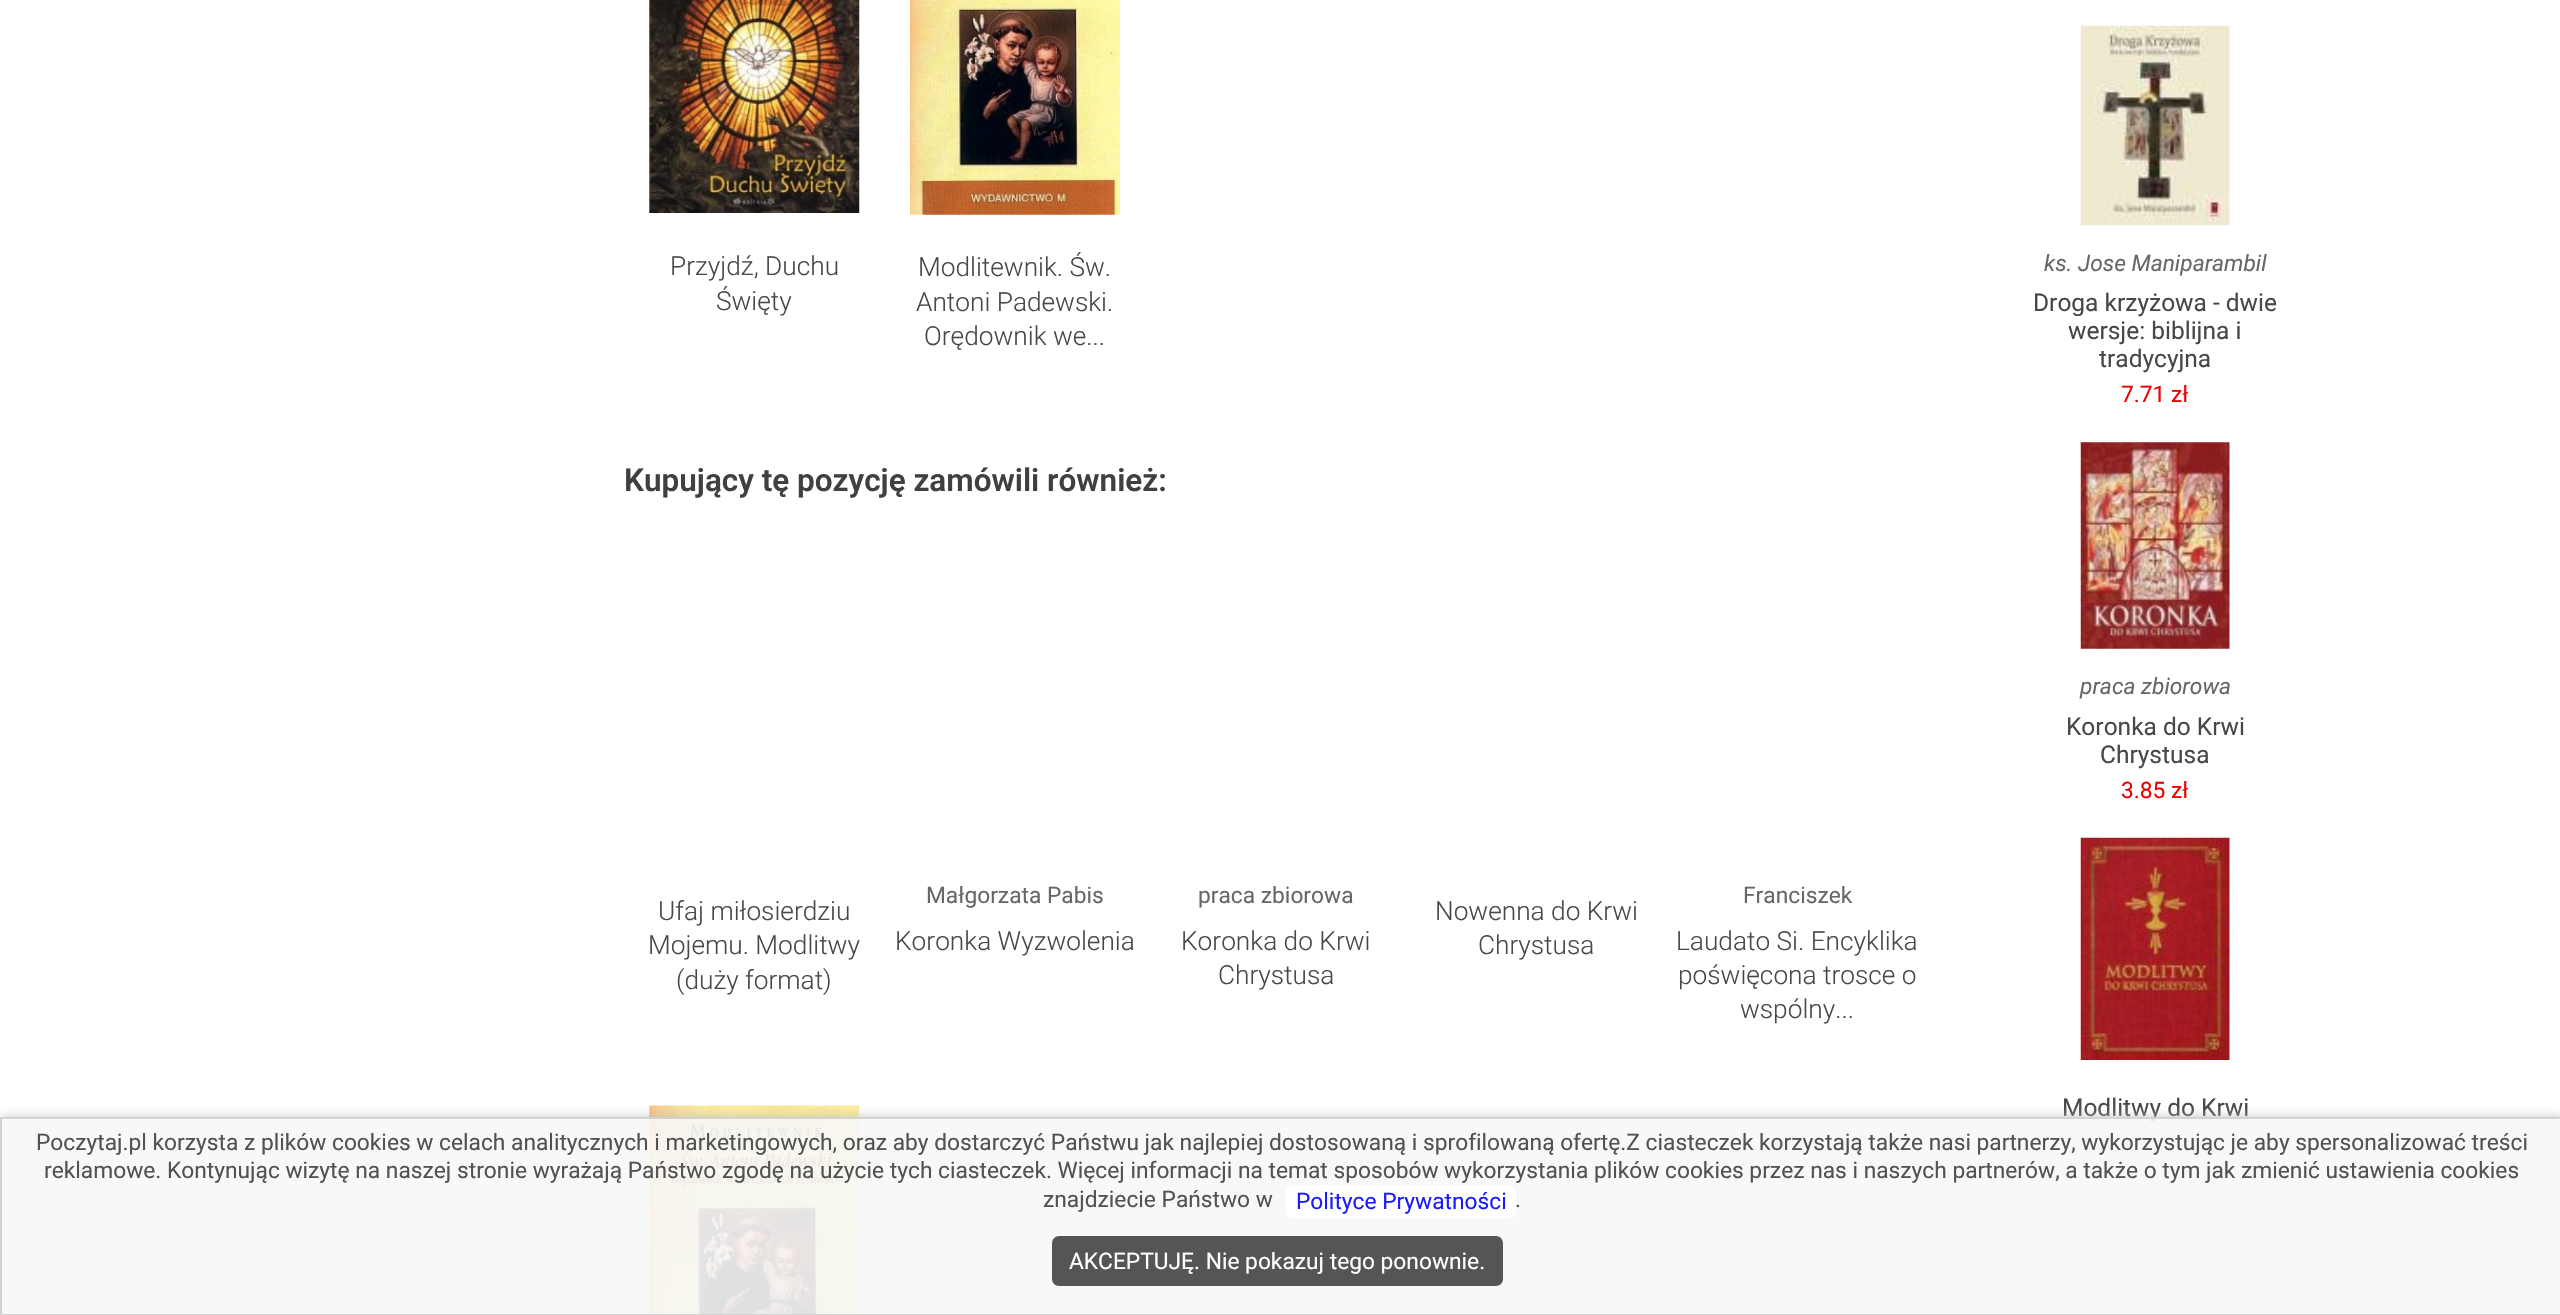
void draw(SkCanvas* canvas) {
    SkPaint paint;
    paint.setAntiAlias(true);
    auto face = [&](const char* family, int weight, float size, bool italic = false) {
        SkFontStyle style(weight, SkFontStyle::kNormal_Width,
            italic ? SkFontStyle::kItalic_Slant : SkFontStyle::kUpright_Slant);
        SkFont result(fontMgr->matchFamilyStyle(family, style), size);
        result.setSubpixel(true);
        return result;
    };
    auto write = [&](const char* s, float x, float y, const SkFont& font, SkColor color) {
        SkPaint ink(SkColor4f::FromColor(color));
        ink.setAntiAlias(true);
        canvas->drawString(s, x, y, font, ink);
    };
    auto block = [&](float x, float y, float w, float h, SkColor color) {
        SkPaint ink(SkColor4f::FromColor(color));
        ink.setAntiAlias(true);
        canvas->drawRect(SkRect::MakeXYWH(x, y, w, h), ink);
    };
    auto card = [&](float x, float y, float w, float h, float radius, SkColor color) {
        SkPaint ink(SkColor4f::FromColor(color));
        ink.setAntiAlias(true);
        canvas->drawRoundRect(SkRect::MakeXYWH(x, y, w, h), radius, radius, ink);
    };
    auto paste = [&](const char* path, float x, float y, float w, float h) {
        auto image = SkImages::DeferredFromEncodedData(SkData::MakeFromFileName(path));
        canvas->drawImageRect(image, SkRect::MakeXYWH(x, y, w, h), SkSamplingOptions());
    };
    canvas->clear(SK_ColorWHITE);
    paste("pic1.png", 649, 0, 211, 213);
    auto kFont1 = face("Roboto", 300, 26.25f);
    write("Przyjdź, Duchu", 670, 275, kFont1, SkColorSetRGB(72, 72, 72));
    write("Święty", 716, 310, kFont1, SkColorSetRGB(72, 72, 72));
    paste("pic2.png", 910, 0, 210, 215);
    write("Modlitewnik. Św.", 918, 276, kFont1, SkColorSetRGB(72, 72, 72));
    write("Antoni Padewski.", 916, 311, kFont1, SkColorSetRGB(72, 72, 72));
    write("Orędownik we...", 924, 345, kFont1, SkColorSetRGB(72, 72, 72));
    auto kFont2 = face("Roboto", 600, 31.5f);
    write("Kupujący tę pozycję zamówili również:", 624, 491, kFont2, SkColorSetRGB(64, 64, 64));
    write("Ufaj miłosierdziu", 658, 920, kFont1, SkColorSetRGB(72, 72, 72));
    write("Mojemu. Modlitwy", 648, 954, kFont1, SkColorSetRGB(72, 72, 72));
    write("(duży format)", 676, 989, kFont1, SkColorSetRGB(72, 72, 72));
    auto kFont3 = face("Roboto", 400, 22.75f);
    write("Małgorzata Pabis", 926, 903, kFont3, SkColorSetRGB(103, 103, 103));
    write("Koronka Wyzwolenia", 895, 950, kFont1, SkColorSetRGB(72, 72, 72));
    write("praca zbiorowa", 1198, 903, kFont3, SkColorSetRGB(103, 103, 103));
    write("Koronka do Krwi", 1181, 950, kFont1, SkColorSetRGB(72, 72, 72));
    write("Chrystusa", 1218, 984, kFont1, SkColorSetRGB(72, 72, 72));
    write("Nowenna do Krwi", 1435, 920, kFont1, SkColorSetRGB(72, 72, 72));
    write("Chrystusa", 1478, 954, kFont1, SkColorSetRGB(72, 72, 72));
    write("Franciszek", 1743, 903, kFont3, SkColorSetRGB(103, 103, 103));
    write("Laudato Si. Encyklika", 1676, 950, kFont1, SkColorSetRGB(72, 72, 72));
    write("poświęcona trosce o", 1678, 984, kFont1, SkColorSetRGB(72, 72, 72));
    write("wspólny...", 1740, 1018, kFont1, SkColorSetRGB(72, 72, 72));
    paste("pic3.png", 649, 1105, 211, 210);
    paste("pic4.png", 2080, 25, 150, 201);
    auto kFont4 = face("Roboto", 400, 22.75f, true);
    write("ks. Jose Maniparambil", 2044, 271, kFont4, SkColorSetRGB(103, 103, 103));
    auto kFont5 = face("Roboto", 400, 24.5f);
    write("Droga krzyżowa - dwie", 2033, 311, kFont5, SkColorSetRGB(72, 72, 72));
    write("wersje: biblijna i", 2068, 339, kFont5, SkColorSetRGB(72, 72, 72));
    write("tradycyjna", 2099, 367, kFont5, SkColorSetRGB(72, 72, 72));
    write("7.71 zł", 2121, 402, kFont3, SkColorSetRGB(236, 0, 0));
    paste("pic5.png", 2080, 442, 150, 207);
    write("praca zbiorowa", 2080, 694, kFont4, SkColorSetRGB(103, 103, 103));
    write("Koronka do Krwi", 2066, 735, kFont5, SkColorSetRGB(72, 72, 72));
    write("Chrystusa", 2100, 763, kFont5, SkColorSetRGB(72, 72, 72));
    write("3.85 zł", 2121, 798, kFont3, SkColorSetRGB(236, 0, 0));
    paste("pic6.png", 2080, 837, 150, 223);
    write("Modlitwy do Krwi", 2062, 1116, kFont5, SkColorSetRGB(72, 72, 72));
    canvas->save();
    canvas->clipRect(SkRect::MakeXYWH(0, 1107, 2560, 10));
    paint.setColor(SkColorSetARGB(230, 192, 192, 192));
    paint.setMaskFilter(SkMaskFilter::MakeBlur(kNormal_SkBlurStyle, 5));
    canvas->drawRect(SkRect::MakeXYWH(0, 1117, 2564, 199), paint);
    paint.setMaskFilter(nullptr);
    canvas->restore();
    block(0, 1117, 2560, 198, SkColorSetARGB(230, 247, 247, 247));
    paint.setStyle(SkPaint::kStroke_Style);
    paint.setStrokeWidth(2);
    paint.setColor(SkColorSetARGB(230, 206, 206, 206));
    canvas->drawRect(SkRect::MakeXYWH(1, 1118, 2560, 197), paint);
    write("Poczytaj.pl korzysta z plików cookies w celach analitycznych i marketingowych, oraz aby dostarczyć Państwu jak najlepiej dostosowaną i sprofilowaną ofertę.Z ciasteczek korzystają także nasi partnerzy, wykorzystując je aby spersonalizować treści", 36, 1150, kFont3, SkColorSetRGB(82, 82, 82));
    write("reklamowe. Kontynując wizytę na naszej stronie wyrażają Państwo zgodę na użycie tych ciasteczek. Więcej informacji na temat sposobów wykorzystania plików cookies przez nas i naszych partnerów, a także o tym jak zmienić ustawienia cookies", 44, 1178, kFont3, SkColorSetRGB(82, 82, 82));
    write("znajdziecie Państwo w", 1043, 1207, kFont3, SkColorSetRGB(82, 82, 82));
    card(1286, 1185, 230, 33, 7, SK_ColorWHITE);
    write("Polityce Prywatności", 1296, 1209, kFont3, SkColorSetRGB(26, 26, 255));
    write(".", 1515, 1207, kFont3, SkColorSetRGB(82, 82, 82));
    card(1052, 1236, 451, 50, 7, SkColorSetRGB(85, 85, 85));
    write("AKCEPTUJĘ. Nie pokazuj tego ponownie.", 1069, 1269, kFont3, SK_ColorWHITE);
}
